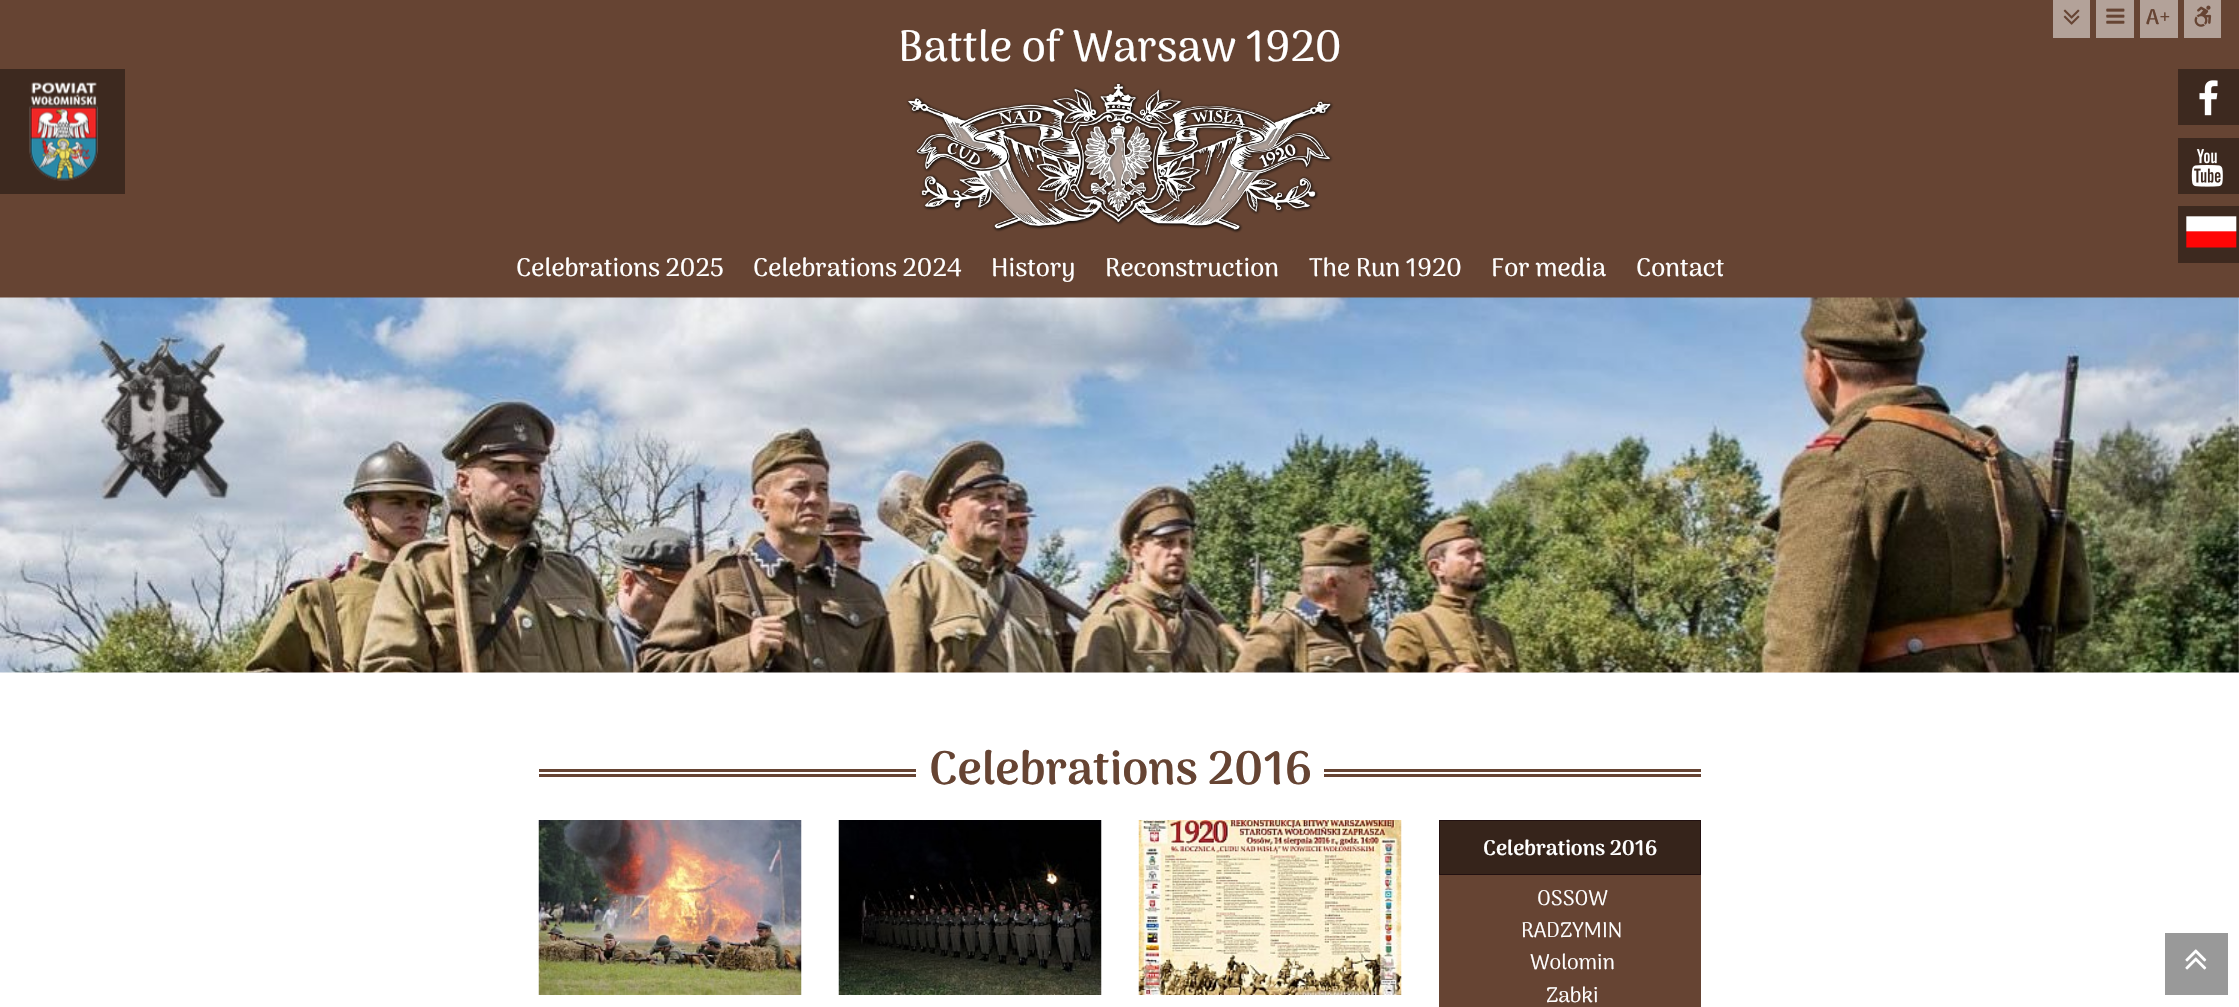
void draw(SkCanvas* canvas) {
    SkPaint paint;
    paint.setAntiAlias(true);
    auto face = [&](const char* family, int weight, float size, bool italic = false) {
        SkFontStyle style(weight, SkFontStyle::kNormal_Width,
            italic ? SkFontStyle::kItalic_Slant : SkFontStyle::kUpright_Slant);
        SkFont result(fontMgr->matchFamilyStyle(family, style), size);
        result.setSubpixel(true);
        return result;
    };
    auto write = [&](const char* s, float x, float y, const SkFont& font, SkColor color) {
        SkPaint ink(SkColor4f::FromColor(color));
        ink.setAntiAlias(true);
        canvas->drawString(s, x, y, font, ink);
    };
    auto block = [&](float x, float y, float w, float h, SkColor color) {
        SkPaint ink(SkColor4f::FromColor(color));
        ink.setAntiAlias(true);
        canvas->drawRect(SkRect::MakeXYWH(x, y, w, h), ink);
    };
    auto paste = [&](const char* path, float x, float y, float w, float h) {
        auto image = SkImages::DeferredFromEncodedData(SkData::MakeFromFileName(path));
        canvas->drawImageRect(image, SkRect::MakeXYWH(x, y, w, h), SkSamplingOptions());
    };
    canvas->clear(SK_ColorWHITE);
    block(0, 0, 2239, 298, SkColorSetRGB(102, 68, 51));
    block(0, 69, 125, 125, SkColorSetRGB(61, 41, 31));
    paste("pic1.png", 29, 82, 69, 99);
    block(2053, 0, 37, 38, SkColorSetRGB(179, 162, 153));
    paste("pic2.png", 2063, 9, 17, 16);
    block(2096, 0, 38, 38, SkColorSetRGB(179, 162, 153));
    paste("pic3.png", 2106, 8, 19, 16);
    block(2140, 0, 38, 38, SkColorSetRGB(179, 162, 153));
    auto kFont1 = face("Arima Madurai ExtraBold", 800, 21.25f);
    write("A+", 2146, 24, kFont1, SkColorSetRGB(102, 68, 51));
    block(2184, 0, 37, 38, SkColorSetRGB(179, 162, 153));
    paste("pic4.png", 2194, 5, 18, 22);
    paste("pic5.png", 906, 82, 428, 151);
    auto kFont2 = face("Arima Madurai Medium", 500, 43.75f);
    write("Battle of Warsaw 1920", 898, 61, kFont2, SK_ColorWHITE);
    auto kFont3 = face("Arima Madurai Medium", 500, 25.5f);
    write("Celebrations 2025", 516, 276, kFont3, SK_ColorWHITE);
    write("Celebrations 2024", 753, 276, kFont3, SK_ColorWHITE);
    write("History", 991, 276, kFont3, SK_ColorWHITE);
    write("Reconstruction", 1105, 276, kFont3, SK_ColorWHITE);
    write("The Run 1920", 1309, 276, kFont3, SK_ColorWHITE);
    write("For media", 1491, 276, kFont3, SK_ColorWHITE);
    write("Contact", 1636, 276, kFont3, SK_ColorWHITE);
    block(2178, 69, 61, 56, SkColorSetRGB(61, 41, 31));
    paste("pic6.png", 2199, 80, 19, 36);
    block(2178, 138, 61, 56, SkColorSetRGB(61, 41, 31));
    paste("pic7.png", 2191, 149, 32, 38);
    block(2178, 206, 61, 57, SkColorSetRGB(61, 41, 31));
    paste("pic8.png", 2186, 216, 51, 32);
    paste("pic9.png", 0, 297, 2239, 376);
    block(539, 769, 1162, 3, SkColorSetRGB(102, 68, 51));
    block(539, 774, 1162, 3, SkColorSetRGB(102, 68, 51));
    block(916, 769, 408, 8, SK_ColorWHITE);
    auto kFont4 = face("Arima Madurai ExtraBold", 800, 46.75f);
    write("Celebrations 2016", 929, 784, kFont4, SkColorSetRGB(102, 68, 51));
    paste("pic10.png", 538, 820, 264, 175);
    paste("pic11.png", 838, 820, 264, 175);
    paste("pic12.png", 1138, 820, 264, 175);
    block(1439, 875, 262, 132, SkColorSetRGB(102, 68, 51));
    paint.setColor(SkColorSetRGB(54, 36, 27));
    canvas->drawRect(SkRect::MakeXYWH(1439.5f, 820.5f, 261, 54), paint);
    paint.setStyle(SkPaint::kStroke_Style);
    paint.setStrokeWidth(1);
    paint.setColor(SkColorSetRGB(34, 17, 17));
    canvas->drawRect(SkRect::MakeXYWH(1439.5f, 820.5f, 261, 54), paint);
    write("Celebrations 2016", 1483, 855, kFont1, SK_ColorWHITE);
    auto kFont5 = face("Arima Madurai", 400, 21.25f);
    write("OSSOW", 1537, 905, kFont5, SK_ColorWHITE);
    write("RADZYMIN", 1521, 937, kFont5, SK_ColorWHITE);
    write("Wolomin", 1530, 969, kFont5, SK_ColorWHITE);
    write("Zabki", 1546, 1002, kFont5, SK_ColorWHITE);
    block(2165, 933, 63, 62, SkColorSetRGB(153, 153, 153));
    paste("pic13.png", 2185, 949, 22, 21);
}
